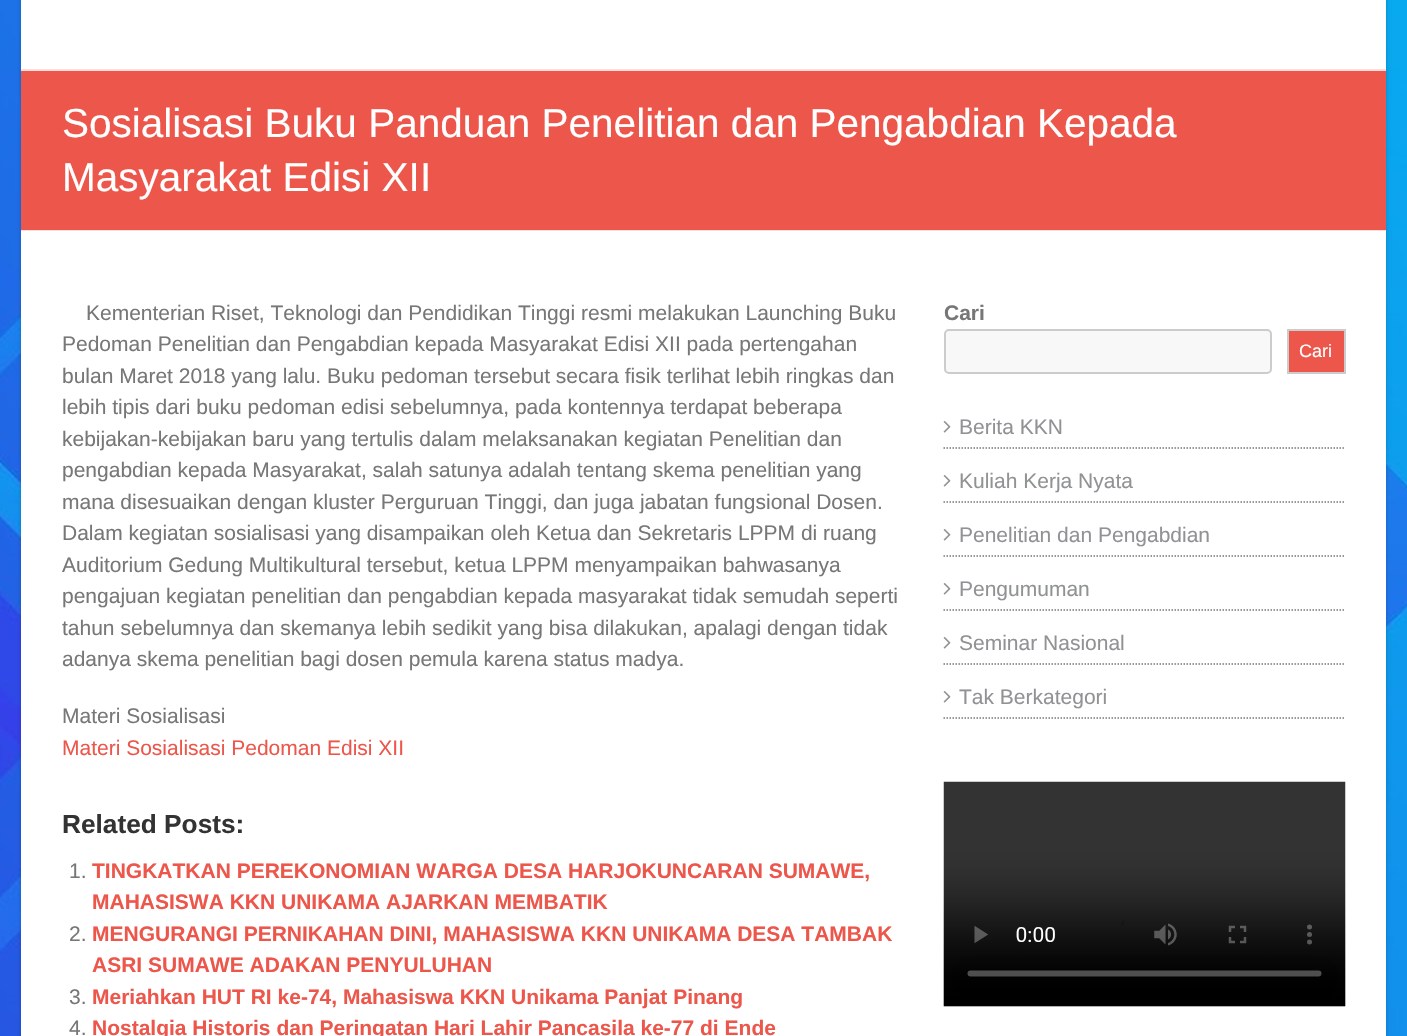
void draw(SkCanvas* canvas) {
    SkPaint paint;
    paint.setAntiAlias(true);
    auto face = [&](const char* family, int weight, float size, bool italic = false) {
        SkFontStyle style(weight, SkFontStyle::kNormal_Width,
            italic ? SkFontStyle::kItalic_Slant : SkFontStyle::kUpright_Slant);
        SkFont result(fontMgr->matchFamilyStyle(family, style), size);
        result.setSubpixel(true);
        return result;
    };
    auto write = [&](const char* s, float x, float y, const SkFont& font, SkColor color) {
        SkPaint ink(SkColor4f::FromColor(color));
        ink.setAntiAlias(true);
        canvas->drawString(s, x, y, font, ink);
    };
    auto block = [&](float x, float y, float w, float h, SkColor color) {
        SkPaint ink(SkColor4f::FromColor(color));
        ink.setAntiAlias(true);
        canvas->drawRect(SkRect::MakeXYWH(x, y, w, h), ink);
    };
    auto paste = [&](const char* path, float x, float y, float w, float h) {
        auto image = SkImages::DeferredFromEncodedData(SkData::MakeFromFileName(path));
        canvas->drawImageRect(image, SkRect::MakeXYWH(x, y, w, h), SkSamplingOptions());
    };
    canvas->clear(SK_ColorWHITE);
    paste("pic1.png", 0, 0, 1407, 1036);
    paint.setColor(SkColorSetARGB(51, 0, 0, 0));
    paint.setMaskFilter(SkMaskFilter::MakeBlur(kNormal_SkBlurStyle, 2));
    canvas->drawRect(SkRect::MakeXYWH(21, -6, 1365, 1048), paint);
    paint.setMaskFilter(nullptr);
    block(21, 0, 1365, 1036, SK_ColorWHITE);
    block(21, 71, 1365, 160, SkColorSetRGB(237, 86, 75));
    block(21, 69, 1365, 2, SkColorSetRGB(251, 221, 219));
    block(21, 230, 1365, 1, SkColorSetARGB(204, 255, 255, 255));
    auto kFont1 = face("Liberation Sans", 400, 40.5f);
    write("Sosialisasi Buku Panduan Penelitian dan Pengabdian Kepada", 62, 137, kFont1, SK_ColorWHITE);
    write("Masyarakat Edisi XII", 62, 191, kFont1, SK_ColorWHITE);
    auto kFont2 = face("Liberation Sans", 400, 21);
    write("Kementerian Riset, Teknologi dan Pendidikan Tinggi resmi melakukan Launching Buku", 86, 320, kFont2, SkColorSetRGB(119, 119, 119));
    write("Pedoman Penelitian dan Pengabdian kepada Masyarakat Edisi XII pada pertengahan", 62, 351, kFont2, SkColorSetRGB(119, 119, 119));
    write("bulan Maret 2018 yang lalu. Buku pedoman tersebut secara fisik terlihat lebih ringkas dan", 62, 383, kFont2, SkColorSetRGB(119, 119, 119));
    write("lebih tipis dari buku pedoman edisi sebelumnya, pada kontennya terdapat beberapa", 62, 414, kFont2, SkColorSetRGB(119, 119, 119));
    write("kebijakan-kebijakan baru yang tertulis dalam melaksanakan kegiatan Penelitian dan", 62, 446, kFont2, SkColorSetRGB(119, 119, 119));
    write("pengabdian kepada Masyarakat, salah satunya adalah tentang skema penelitian yang", 62, 477, kFont2, SkColorSetRGB(119, 119, 119));
    write("mana disesuaikan dengan kluster Perguruan Tinggi, dan juga jabatan fungsional Dosen.", 62, 509, kFont2, SkColorSetRGB(119, 119, 119));
    write("Dalam kegiatan sosialisasi yang disampaikan oleh Ketua dan Sekretaris LPPM di ruang", 62, 540, kFont2, SkColorSetRGB(119, 119, 119));
    write("Auditorium Gedung Multikultural tersebut, ketua LPPM menyampaikan bahwasanya", 62, 572, kFont2, SkColorSetRGB(119, 119, 119));
    write("pengajuan kegiatan penelitian dan pengabdian kepada masyarakat tidak semudah seperti", 62, 603, kFont2, SkColorSetRGB(119, 119, 119));
    write("tahun sebelumnya dan skemanya lebih sedikit yang bisa dilakukan, apalagi dengan tidak", 62, 635, kFont2, SkColorSetRGB(119, 119, 119));
    write("adanya skema penelitian bagi dosen pemula karena status madya.", 62, 666, kFont2, SkColorSetRGB(119, 119, 119));
    write("Materi Sosialisasi", 62, 723, kFont2, SkColorSetRGB(119, 119, 119));
    write("Materi Sosialisasi Pedoman Edisi XII", 62, 755, kFont2, SkColorSetRGB(237, 86, 75));
    auto kFont3 = face("Liberation Sans", 700, 26.25f);
    write("Related Posts:", 62, 833, kFont3, SkColorSetRGB(51, 51, 51));
    write("1.", 69, 878, kFont2, SkColorSetRGB(119, 119, 119));
    auto kFont4 = face("Liberation Sans", 700, 21);
    write("TINGKATKAN PEREKONOMIAN WARGA DESA HARJOKUNCARAN SUMAWE,", 92, 878, kFont4, SkColorSetRGB(237, 86, 75));
    write("MAHASISWA KKN UNIKAMA AJARKAN MEMBATIK", 92, 909, kFont4, SkColorSetRGB(237, 86, 75));
    write("2.", 69, 941, kFont2, SkColorSetRGB(119, 119, 119));
    write("MENGURANGI PERNIKAHAN DINI, MAHASISWA KKN UNIKAMA DESA TAMBAK", 92, 941, kFont4, SkColorSetRGB(237, 86, 75));
    write("ASRI SUMAWE ADAKAN PENYULUHAN", 92, 972, kFont4, SkColorSetRGB(237, 86, 75));
    write("3.", 69, 1004, kFont2, SkColorSetRGB(119, 119, 119));
    write("Meriahkan HUT RI ke-74, Mahasiswa KKN Unikama Panjat Pinang", 92, 1004, kFont4, SkColorSetRGB(237, 86, 75));
    write("4.", 69, 1035, kFont2, SkColorSetRGB(119, 119, 119));
    write("Nostalgia Historis dan Peringatan Hari Lahir Pancasila ke-77 di Ende", 92, 1035, kFont4, SkColorSetRGB(237, 86, 75));
    write("Cari", 944, 320, kFont4, SkColorSetRGB(119, 119, 119));
    paint.setColor(SkColorSetRGB(248, 248, 248));
    canvas->drawRoundRect(SkRect::MakeXYWH(945, 330, 326, 43), 4, 4, paint);
    paint.setStyle(SkPaint::kStroke_Style);
    paint.setStrokeWidth(2);
    paint.setColor(SkColorSetRGB(204, 204, 204));
    canvas->drawRoundRect(SkRect::MakeXYWH(945, 330, 326, 43), 4, 4, paint);
    paint.setStyle(SkPaint::kFill_Style);
    paint.setColor(SkColorSetRGB(237, 86, 75));
    canvas->drawRect(SkRect::MakeXYWH(1288, 330, 57, 43), paint);
    paint.setStyle(SkPaint::kStroke_Style);
    paint.setColor(SkColorSetRGB(204, 204, 204));
    canvas->drawRect(SkRect::MakeXYWH(1288, 330, 57, 43), paint);
    auto kFont5 = face("Liberation Sans", 400, 18);
    write("Cari", 1299, 357, kFont5, SK_ColorWHITE);
    paint.setStrokeWidth(1.5f);
    paint.setColor(SkColorSetRGB(119, 119, 119));
    paint.setPathEffect(SkDashPathEffect::Make({{1.5f, 1.5f}}, 0));
    canvas->drawPath(SkPathBuilder().moveTo(943.5f, 448).lineTo(1345.5f, 448).detach(), paint);
    paint.setPathEffect(nullptr);
    paste("pic2.png", 943, 421, 8, 12);
    write("Berita KKN", 959, 434, kFont2, SkColorSetRGB(144, 146, 148));
    paint.setPathEffect(SkDashPathEffect::Make({{1.5f, 1.5f}}, 0));
    canvas->drawPath(SkPathBuilder().moveTo(943.5f, 502).lineTo(1345.5f, 502).detach(), paint);
    paint.setPathEffect(nullptr);
    paste("pic2.png", 943, 475, 8, 12);
    write("Kuliah Kerja Nyata", 959, 488, kFont2, SkColorSetRGB(144, 146, 148));
    paint.setPathEffect(SkDashPathEffect::Make({{1.5f, 1.5f}}, 0));
    canvas->drawPath(SkPathBuilder().moveTo(943.5f, 556).lineTo(1345.5f, 556).detach(), paint);
    paint.setPathEffect(nullptr);
    paste("pic2.png", 943, 529, 8, 12);
    write("Penelitian dan Pengabdian", 959, 542, kFont2, SkColorSetRGB(144, 146, 148));
    paint.setPathEffect(SkDashPathEffect::Make({{1.5f, 1.5f}}, 0));
    canvas->drawPath(SkPathBuilder().moveTo(943.5f, 610).lineTo(1345.5f, 610).detach(), paint);
    paint.setPathEffect(nullptr);
    paste("pic2.png", 943, 583, 8, 12);
    write("Pengumuman", 959, 596, kFont2, SkColorSetRGB(144, 146, 148));
    paint.setPathEffect(SkDashPathEffect::Make({{1.5f, 1.5f}}, 0));
    canvas->drawPath(SkPathBuilder().moveTo(943.5f, 664).lineTo(1345.5f, 664).detach(), paint);
    paint.setPathEffect(nullptr);
    paste("pic2.png", 943, 637, 8, 12);
    write("Seminar Nasional", 959, 650, kFont2, SkColorSetRGB(144, 146, 148));
    paint.setPathEffect(SkDashPathEffect::Make({{1.5f, 1.5f}}, 0));
    canvas->drawPath(SkPathBuilder().moveTo(943.5f, 718).lineTo(1345.5f, 718).detach(), paint);
    paint.setPathEffect(nullptr);
    paste("pic2.png", 943, 691, 8, 12);
    write("Tak Berkategori", 959, 704, kFont2, SkColorSetRGB(144, 146, 148));
    paste("pic3.png", 943, 781, 403, 226);
}
